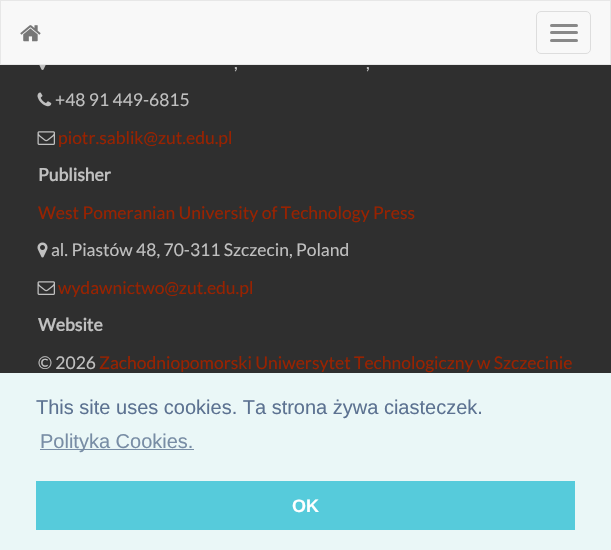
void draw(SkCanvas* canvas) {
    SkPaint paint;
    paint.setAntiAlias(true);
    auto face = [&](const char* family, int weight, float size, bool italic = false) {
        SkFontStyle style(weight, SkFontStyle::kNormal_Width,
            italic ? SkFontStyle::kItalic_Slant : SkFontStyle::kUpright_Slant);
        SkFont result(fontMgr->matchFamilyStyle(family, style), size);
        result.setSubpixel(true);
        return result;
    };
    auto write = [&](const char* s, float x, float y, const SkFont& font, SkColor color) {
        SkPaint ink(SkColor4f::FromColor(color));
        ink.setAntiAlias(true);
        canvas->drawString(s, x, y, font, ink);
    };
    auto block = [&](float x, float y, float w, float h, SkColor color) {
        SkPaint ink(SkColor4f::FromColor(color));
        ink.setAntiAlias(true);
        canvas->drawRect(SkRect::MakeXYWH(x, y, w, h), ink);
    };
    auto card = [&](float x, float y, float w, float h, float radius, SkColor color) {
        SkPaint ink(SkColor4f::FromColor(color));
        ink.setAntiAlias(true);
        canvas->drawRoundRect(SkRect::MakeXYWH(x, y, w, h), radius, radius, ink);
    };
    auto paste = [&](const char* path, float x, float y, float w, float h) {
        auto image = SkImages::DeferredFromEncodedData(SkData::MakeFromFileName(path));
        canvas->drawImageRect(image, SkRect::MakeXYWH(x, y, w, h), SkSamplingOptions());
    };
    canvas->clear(SkColorSetRGB(47, 47, 47));
    paint.setColor(SkColorSetRGB(248, 248, 248));
    canvas->drawRect(SkRect::MakeXYWH(0.5f, 0.5f, 610, 64), paint);
    paint.setStyle(SkPaint::kStroke_Style);
    paint.setStrokeWidth(1);
    paint.setColor(SkColorSetRGB(231, 231, 231));
    canvas->drawRect(SkRect::MakeXYWH(0.5f, 0.5f, 610, 64), paint);
    paste("pic1.png", 20, 25, 21, 17);
    paint.setColor(SkColorSetRGB(221, 221, 221));
    canvas->drawRoundRect(SkRect::MakeXYWH(536.5f, 11.5f, 54, 42), 4.5f, 4.5f, paint);
    card(550, 24, 28, 3, 1.5f, SkColorSetRGB(136, 136, 136));
    card(550, 31, 28, 3, 1.5f, SkColorSetRGB(136, 136, 136));
    card(550, 39, 28, 3, 1.5f, SkColorSetRGB(136, 136, 136));
    paste("pic2.png", 39, 65, 7, 5);
    auto kFont1 = face("Lato", 400, 17.5f);
    write(",", 234, 69, kFont1, SkColorSetRGB(192, 192, 192));
    write(",", 366, 69, kFont1, SkColorSetRGB(192, 192, 192));
    paste("pic3.png", 37, 92, 15, 15);
    write("+48 91 449-6815", 55, 106, kFont1, SkColorSetRGB(192, 192, 192));
    paste("pic4.png", 37, 131, 18, 14);
    write("piotr.sablik@zut.edu.pl", 58, 144, kFont1, SkColorSetRGB(153, 34, 0));
    auto kFont2 = face("Lato", 700, 17.5f);
    write("Publisher", 38, 181, kFont2, SkColorSetRGB(192, 192, 192));
    write("West Pomeranian University of Technology Press", 38, 219, kFont1, SkColorSetRGB(153, 34, 0));
    paste("pic5.png", 37, 242, 11, 16);
    write("al. Piastów 48, 70-311 Szczecin, Poland", 51, 256, kFont1, SkColorSetRGB(192, 192, 192));
    paste("pic4.png", 37, 281, 18, 14);
    write("wydawnictwo@zut.edu.pl", 58, 294, kFont1, SkColorSetRGB(153, 34, 0));
    write("Website", 38, 331, kFont2, SkColorSetRGB(192, 192, 192));
    write("© 2026", 38, 369, kFont1, SkColorSetRGB(192, 192, 192));
    write("Zachodniopomorski Uniwersytet Technologiczny w Szczecinie", 99, 369, kFont1, SkColorSetRGB(153, 34, 0));
    block(0, 373, 611, 177, SkColorSetRGB(234, 247, 247));
    auto kFont3 = face("Liberation Sans", 400, 20);
    write("This site uses cookies. Ta strona żywa ciasteczek.", 36, 414, kFont3, SkColorSetRGB(92, 114, 145));
    block(40, 449, 154, 1, SkColorSetRGB(120, 141, 165));
    write("Polityka Cookies.", 40, 448, kFont3, SkColorSetRGB(120, 141, 165));
    block(36, 481, 539, 49, SkColorSetRGB(86, 203, 219));
    auto kFont4 = face("Liberation Sans", 700, 18);
    write("OK", 292, 512, kFont4, SK_ColorWHITE);
}
